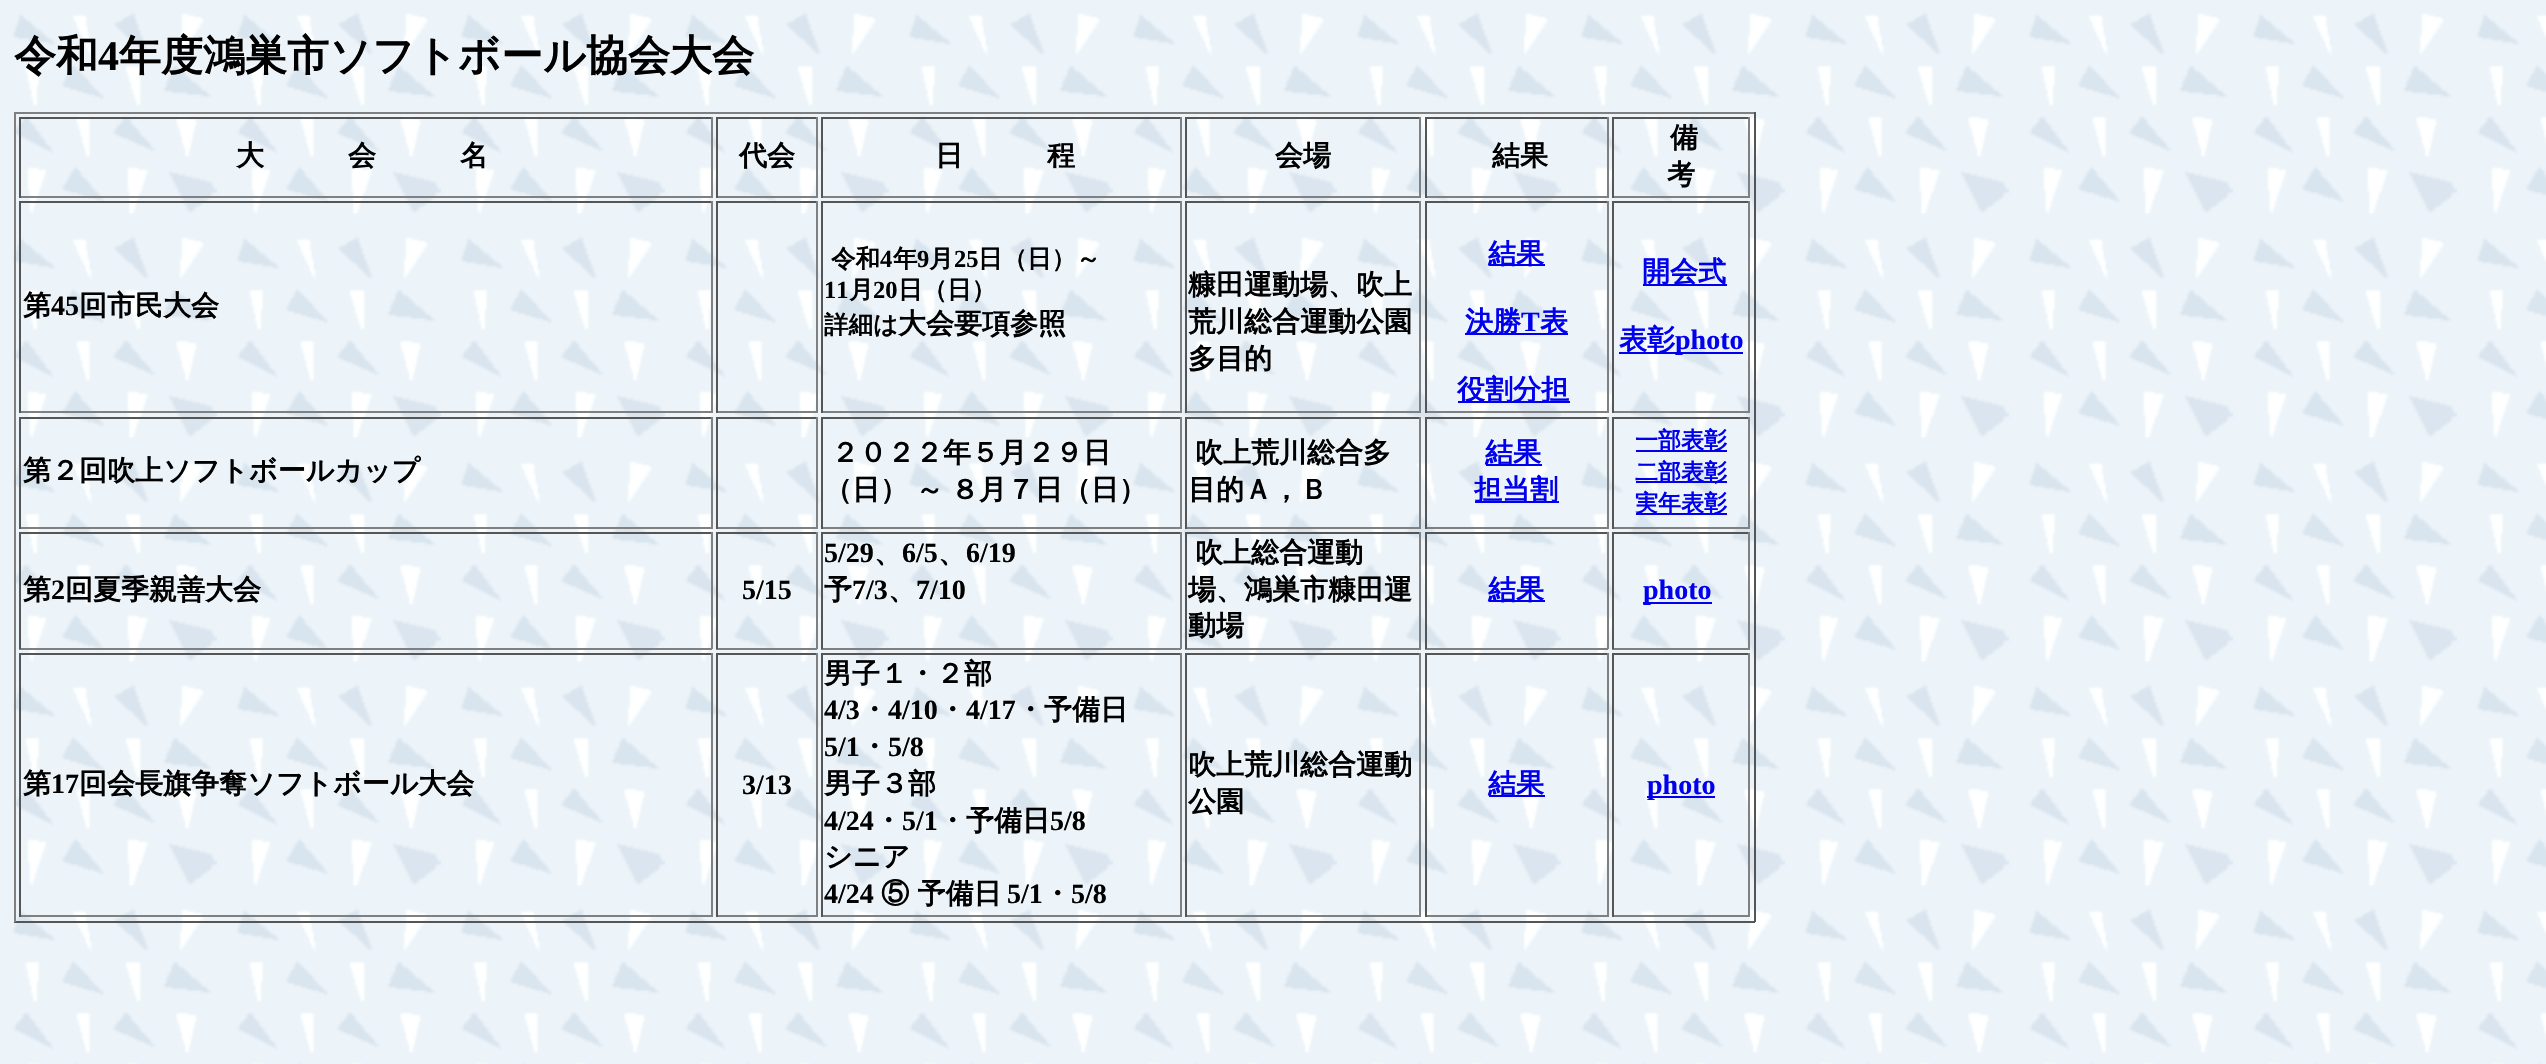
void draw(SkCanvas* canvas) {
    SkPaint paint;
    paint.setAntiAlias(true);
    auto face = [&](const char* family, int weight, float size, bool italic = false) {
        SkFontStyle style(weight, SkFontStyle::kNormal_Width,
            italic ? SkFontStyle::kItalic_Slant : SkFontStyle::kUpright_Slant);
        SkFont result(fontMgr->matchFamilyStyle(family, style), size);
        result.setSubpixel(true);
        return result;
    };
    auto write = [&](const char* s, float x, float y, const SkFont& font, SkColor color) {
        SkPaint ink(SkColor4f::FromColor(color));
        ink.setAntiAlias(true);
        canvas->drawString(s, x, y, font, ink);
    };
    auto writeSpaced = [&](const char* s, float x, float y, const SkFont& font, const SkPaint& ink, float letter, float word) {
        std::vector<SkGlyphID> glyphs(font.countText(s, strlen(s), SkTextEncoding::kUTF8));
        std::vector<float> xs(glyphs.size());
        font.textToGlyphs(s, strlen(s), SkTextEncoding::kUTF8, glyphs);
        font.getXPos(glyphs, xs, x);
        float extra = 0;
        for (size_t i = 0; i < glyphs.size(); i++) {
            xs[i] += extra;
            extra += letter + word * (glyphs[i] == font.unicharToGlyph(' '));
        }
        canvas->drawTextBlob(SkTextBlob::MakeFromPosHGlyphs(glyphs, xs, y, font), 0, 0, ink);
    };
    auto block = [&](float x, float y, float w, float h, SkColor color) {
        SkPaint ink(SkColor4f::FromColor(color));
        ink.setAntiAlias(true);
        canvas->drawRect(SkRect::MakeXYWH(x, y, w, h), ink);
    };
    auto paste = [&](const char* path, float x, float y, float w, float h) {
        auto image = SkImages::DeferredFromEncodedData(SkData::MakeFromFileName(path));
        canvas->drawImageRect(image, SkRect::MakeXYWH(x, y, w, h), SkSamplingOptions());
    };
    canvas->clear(SK_ColorWHITE);
    paste("pic1.png", 0, 0, 2546, 1064);
    auto kFont1 = face("WenQuanYi Zen Hei", 700, 42);
    write("令和", 14, 70, kFont1, SK_ColorBLACK);
    auto kFont2 = face("Liberation Serif", 700, 42);
    write("4", 98, 70, kFont2, SK_ColorBLACK);
    write("年度鴻巣市ソフトボール協会大会", 119, 70, kFont1, SK_ColorBLACK);
    block(14, 112, 1741, 2, SkColorSetRGB(128, 128, 128));
    block(1754, 112, 2, 810, SkColorSetRGB(85, 85, 85));
    block(14, 921, 1741, 2, SkColorSetRGB(85, 85, 85));
    block(14, 112, 2, 810, SkColorSetRGB(128, 128, 128));
    block(19, 117, 693, 2, SkColorSetRGB(85, 85, 85));
    block(711, 117, 2, 81, SkColorSetRGB(128, 128, 128));
    block(19, 196, 693, 2, SkColorSetRGB(128, 128, 128));
    block(19, 117, 2, 81, SkColorSetRGB(85, 85, 85));
    auto kFont3 = face("WenQuanYi Zen Hei", 700, 28);
    write("大　　　会　　　名", 236, 165, kFont3, SK_ColorBLACK);
    block(716, 117, 101, 2, SkColorSetRGB(85, 85, 85));
    block(816, 117, 2, 81, SkColorSetRGB(128, 128, 128));
    block(716, 196, 101, 2, SkColorSetRGB(128, 128, 128));
    block(716, 117, 2, 81, SkColorSetRGB(85, 85, 85));
    write("代会", 739, 165, kFont3, SK_ColorBLACK);
    block(821, 117, 360, 2, SkColorSetRGB(85, 85, 85));
    block(1180, 117, 2, 81, SkColorSetRGB(128, 128, 128));
    block(821, 196, 360, 2, SkColorSetRGB(128, 128, 128));
    block(821, 117, 2, 81, SkColorSetRGB(85, 85, 85));
    write("日　　　程", 935, 165, kFont3, SK_ColorBLACK);
    block(1185, 117, 236, 2, SkColorSetRGB(85, 85, 85));
    block(1419, 117, 2, 81, SkColorSetRGB(128, 128, 128));
    block(1185, 196, 236, 2, SkColorSetRGB(128, 128, 128));
    block(1185, 117, 2, 81, SkColorSetRGB(85, 85, 85));
    write("会場", 1275, 165, kFont3, SK_ColorBLACK);
    block(1425, 117, 183, 2, SkColorSetRGB(85, 85, 85));
    block(1607, 117, 2, 81, SkColorSetRGB(128, 128, 128));
    block(1425, 196, 183, 2, SkColorSetRGB(128, 128, 128));
    block(1425, 117, 2, 81, SkColorSetRGB(85, 85, 85));
    write("結果", 1492, 165, kFont3, SK_ColorBLACK);
    block(1612, 117, 138, 2, SkColorSetRGB(85, 85, 85));
    block(1748, 117, 2, 81, SkColorSetRGB(128, 128, 128));
    block(1612, 196, 138, 2, SkColorSetRGB(128, 128, 128));
    block(1612, 117, 2, 81, SkColorSetRGB(85, 85, 85));
    write("備", 1670, 147, kFont3, SK_ColorBLACK);
    write("考", 1667, 184, kFont3, SK_ColorBLACK);
    block(19, 201, 693, 2, SkColorSetRGB(85, 85, 85));
    block(711, 201, 2, 212, SkColorSetRGB(128, 128, 128));
    block(19, 411, 693, 2, SkColorSetRGB(128, 128, 128));
    block(19, 201, 2, 212, SkColorSetRGB(85, 85, 85));
    write("第", 23, 315, kFont3, SK_ColorBLACK);
    auto kFont4 = face("Liberation Serif", 700, 28);
    write("45", 51, 315, kFont4, SK_ColorBLACK);
    write("回市民大会", 79, 315, kFont3, SK_ColorBLACK);
    block(716, 201, 101, 2, SkColorSetRGB(85, 85, 85));
    block(816, 201, 2, 212, SkColorSetRGB(128, 128, 128));
    block(716, 411, 101, 2, SkColorSetRGB(128, 128, 128));
    block(716, 201, 2, 212, SkColorSetRGB(85, 85, 85));
    block(821, 201, 360, 2, SkColorSetRGB(85, 85, 85));
    block(1180, 201, 2, 212, SkColorSetRGB(128, 128, 128));
    block(821, 411, 360, 2, SkColorSetRGB(128, 128, 128));
    block(821, 201, 2, 212, SkColorSetRGB(85, 85, 85));
    auto kFont5 = face("WenQuanYi Zen Hei", 700, 24.5f);
    write("令和", 831, 267, kFont5, SK_ColorBLACK);
    auto kFont6 = face("Liberation Serif", 700, 24.5f);
    write("4", 880, 267, kFont6, SK_ColorBLACK);
    write("年", 893, 267, kFont5, SK_ColorBLACK);
    write("9", 917, 267, kFont6, SK_ColorBLACK);
    write("月", 929, 267, kFont5, SK_ColorBLACK);
    write("25", 954, 267, kFont6, SK_ColorBLACK);
    write("日（日）～", 978, 267, kFont5, SK_ColorBLACK);
    write("11", 824, 298, kFont6, SK_ColorBLACK);
    write("月", 849, 298, kFont5, SK_ColorBLACK);
    write("20", 873, 298, kFont6, SK_ColorBLACK);
    write("日（日）", 898, 298, kFont5, SK_ColorBLACK);
    write("詳細は", 824, 333, kFont5, SK_ColorBLACK);
    write("大会要項参照", 898, 333, kFont3, SK_ColorBLACK);
    block(1185, 201, 236, 2, SkColorSetRGB(85, 85, 85));
    block(1419, 201, 2, 212, SkColorSetRGB(128, 128, 128));
    block(1185, 411, 236, 2, SkColorSetRGB(128, 128, 128));
    block(1185, 201, 2, 212, SkColorSetRGB(85, 85, 85));
    write("糠田運動場、吹上", 1188, 294, kFont3, SK_ColorBLACK);
    write("荒川総合運動公園", 1188, 331, kFont3, SK_ColorBLACK);
    write("多目的", 1188, 368, kFont3, SK_ColorBLACK);
    block(1425, 201, 183, 2, SkColorSetRGB(85, 85, 85));
    block(1607, 201, 2, 212, SkColorSetRGB(128, 128, 128));
    block(1425, 411, 183, 2, SkColorSetRGB(128, 128, 128));
    block(1425, 201, 2, 212, SkColorSetRGB(85, 85, 85));
    block(1489, 264, 56, 2, SkColorSetRGB(0, 0, 238));
    write("結果", 1488, 263, kFont3, SkColorSetRGB(0, 0, 238));
    block(1465, 333, 103, 2, SkColorSetRGB(0, 0, 238));
    write("決勝", 1465, 331, kFont3, SkColorSetRGB(0, 0, 238));
    write("T", 1521, 331, kFont4, SkColorSetRGB(0, 0, 238));
    write("表", 1540, 331, kFont3, SkColorSetRGB(0, 0, 238));
    block(1458, 401, 112, 2, SkColorSetRGB(0, 0, 238));
    write("役割分担", 1457, 399, kFont3, SkColorSetRGB(0, 0, 238));
    block(1612, 201, 138, 2, SkColorSetRGB(85, 85, 85));
    block(1748, 201, 2, 212, SkColorSetRGB(128, 128, 128));
    block(1612, 411, 138, 2, SkColorSetRGB(128, 128, 128));
    block(1612, 201, 2, 212, SkColorSetRGB(85, 85, 85));
    block(1643, 284, 84, 2, SkColorSetRGB(0, 0, 238));
    write("開会式", 1642, 281, kFont3, SkColorSetRGB(0, 0, 238));
    block(1619, 352, 124, 2, SkColorSetRGB(0, 0, 238));
    write("表彰", 1619, 349, kFont3, SkColorSetRGB(0, 0, 238));
    write("photo", 1675, 349, kFont4, SkColorSetRGB(0, 0, 238));
    block(19, 417, 693, 2, SkColorSetRGB(85, 85, 85));
    block(711, 417, 2, 112, SkColorSetRGB(128, 128, 128));
    block(19, 527, 693, 2, SkColorSetRGB(128, 128, 128));
    block(19, 417, 2, 112, SkColorSetRGB(85, 85, 85));
    write("第２回吹上ソフトボールカップ", 23, 480, kFont3, SK_ColorBLACK);
    block(716, 417, 101, 2, SkColorSetRGB(85, 85, 85));
    block(816, 417, 2, 112, SkColorSetRGB(128, 128, 128));
    block(716, 527, 101, 2, SkColorSetRGB(128, 128, 128));
    block(716, 417, 2, 112, SkColorSetRGB(85, 85, 85));
    block(821, 417, 360, 2, SkColorSetRGB(85, 85, 85));
    block(1180, 417, 2, 112, SkColorSetRGB(128, 128, 128));
    block(821, 527, 360, 2, SkColorSetRGB(128, 128, 128));
    block(821, 417, 2, 112, SkColorSetRGB(85, 85, 85));
    write("２０２２年５月２９日", 831, 462, kFont3, SK_ColorBLACK);
    paint.setColor(SK_ColorBLACK);
    writeSpaced("（日） ～ ８月７日（日）", 824, 499, kFont3, paint, 0, -1);
    block(1185, 417, 236, 2, SkColorSetRGB(85, 85, 85));
    block(1419, 417, 2, 112, SkColorSetRGB(128, 128, 128));
    block(1185, 527, 236, 2, SkColorSetRGB(128, 128, 128));
    block(1185, 417, 2, 112, SkColorSetRGB(85, 85, 85));
    write("吹上荒川総合多", 1195, 462, kFont3, SK_ColorBLACK);
    write("目的Ａ，Ｂ", 1188, 499, kFont3, SK_ColorBLACK);
    block(1425, 417, 183, 2, SkColorSetRGB(85, 85, 85));
    block(1607, 417, 2, 112, SkColorSetRGB(128, 128, 128));
    block(1425, 527, 183, 2, SkColorSetRGB(128, 128, 128));
    block(1425, 417, 2, 112, SkColorSetRGB(85, 85, 85));
    block(1486, 464, 56, 2, SkColorSetRGB(0, 0, 238));
    write("結果", 1485, 462, kFont3, SkColorSetRGB(0, 0, 238));
    block(1475, 501, 84, 2, SkColorSetRGB(0, 0, 238));
    write("担当割", 1474, 499, kFont3, SkColorSetRGB(0, 0, 238));
    block(1612, 417, 138, 2, SkColorSetRGB(85, 85, 85));
    block(1748, 417, 2, 112, SkColorSetRGB(128, 128, 128));
    block(1612, 527, 138, 2, SkColorSetRGB(128, 128, 128));
    block(1612, 417, 2, 112, SkColorSetRGB(85, 85, 85));
    block(1636, 450, 91, 2, SkColorSetRGB(0, 0, 238));
    auto kFont7 = face("WenQuanYi Zen Hei", 700, 23);
    write("一部表彰", 1635, 448, kFont7, SkColorSetRGB(0, 0, 238));
    block(1636, 481, 91, 2, SkColorSetRGB(0, 0, 238));
    write("二部表彰", 1635, 480, kFont7, SkColorSetRGB(0, 0, 238));
    block(1636, 513, 91, 2, SkColorSetRGB(0, 0, 238));
    write("実年表彰", 1635, 511, kFont7, SkColorSetRGB(0, 0, 238));
    block(19, 532, 693, 2, SkColorSetRGB(85, 85, 85));
    block(711, 532, 2, 117, SkColorSetRGB(128, 128, 128));
    block(19, 648, 693, 2, SkColorSetRGB(128, 128, 128));
    block(19, 532, 2, 117, SkColorSetRGB(85, 85, 85));
    write("第", 23, 599, kFont3, SK_ColorBLACK);
    write("2", 51, 599, kFont4, SK_ColorBLACK);
    write("回夏季親善大会", 65, 599, kFont3, SK_ColorBLACK);
    block(716, 532, 101, 2, SkColorSetRGB(85, 85, 85));
    block(816, 532, 2, 117, SkColorSetRGB(128, 128, 128));
    block(716, 648, 101, 2, SkColorSetRGB(128, 128, 128));
    block(716, 532, 2, 117, SkColorSetRGB(85, 85, 85));
    write("5/15", 742, 599, kFont4, SK_ColorBLACK);
    block(821, 532, 360, 2, SkColorSetRGB(85, 85, 85));
    block(1180, 532, 2, 117, SkColorSetRGB(128, 128, 128));
    block(821, 648, 360, 2, SkColorSetRGB(128, 128, 128));
    block(821, 532, 2, 117, SkColorSetRGB(85, 85, 85));
    write("5/29", 824, 562, kFont4, SK_ColorBLACK);
    write("、", 874, 562, kFont3, SK_ColorBLACK);
    write("6/5", 902, 562, kFont4, SK_ColorBLACK);
    write("、", 938, 562, kFont3, SK_ColorBLACK);
    write("6/19", 966, 562, kFont4, SK_ColorBLACK);
    write("予", 824, 599, kFont3, SK_ColorBLACK);
    write("7/3", 852, 599, kFont4, SK_ColorBLACK);
    write("、", 888, 599, kFont3, SK_ColorBLACK);
    write("7/10", 916, 599, kFont4, SK_ColorBLACK);
    block(1185, 532, 236, 2, SkColorSetRGB(85, 85, 85));
    block(1419, 532, 2, 117, SkColorSetRGB(128, 128, 128));
    block(1185, 648, 236, 2, SkColorSetRGB(128, 128, 128));
    block(1185, 532, 2, 117, SkColorSetRGB(85, 85, 85));
    write("吹上総合運動", 1195, 562, kFont3, SK_ColorBLACK);
    write("場、鴻巣市糠田運", 1188, 599, kFont3, SK_ColorBLACK);
    write("動場", 1188, 635, kFont3, SK_ColorBLACK);
    block(1425, 532, 183, 2, SkColorSetRGB(85, 85, 85));
    block(1607, 532, 2, 117, SkColorSetRGB(128, 128, 128));
    block(1425, 648, 183, 2, SkColorSetRGB(128, 128, 128));
    block(1425, 532, 2, 117, SkColorSetRGB(85, 85, 85));
    block(1489, 600, 56, 2, SkColorSetRGB(0, 0, 238));
    write("結果", 1488, 599, kFont3, SkColorSetRGB(0, 0, 238));
    block(1612, 532, 138, 2, SkColorSetRGB(85, 85, 85));
    block(1748, 532, 2, 117, SkColorSetRGB(128, 128, 128));
    block(1612, 648, 138, 2, SkColorSetRGB(128, 128, 128));
    block(1612, 532, 2, 117, SkColorSetRGB(85, 85, 85));
    block(1643, 602, 69, 2, SkColorSetRGB(0, 0, 238));
    write("photo", 1643, 599, kFont4, SkColorSetRGB(0, 0, 238));
    block(19, 653, 693, 2, SkColorSetRGB(85, 85, 85));
    block(711, 653, 2, 264, SkColorSetRGB(128, 128, 128));
    block(19, 915, 693, 2, SkColorSetRGB(128, 128, 128));
    block(19, 653, 2, 264, SkColorSetRGB(85, 85, 85));
    write("第", 23, 793, kFont3, SK_ColorBLACK);
    write("17", 51, 793, kFont4, SK_ColorBLACK);
    write("回会長旗争奪ソフトボール大会", 79, 793, kFont3, SK_ColorBLACK);
    block(716, 653, 101, 2, SkColorSetRGB(85, 85, 85));
    block(816, 653, 2, 264, SkColorSetRGB(128, 128, 128));
    block(716, 915, 101, 2, SkColorSetRGB(128, 128, 128));
    block(716, 653, 2, 264, SkColorSetRGB(85, 85, 85));
    write("3/13", 742, 794, kFont4, SK_ColorBLACK);
    block(821, 653, 360, 2, SkColorSetRGB(85, 85, 85));
    block(1180, 653, 2, 264, SkColorSetRGB(128, 128, 128));
    block(821, 915, 360, 2, SkColorSetRGB(128, 128, 128));
    block(821, 653, 2, 264, SkColorSetRGB(85, 85, 85));
    write("男子１・２部", 824, 683, kFont3, SK_ColorBLACK);
    write("4/3", 824, 719, kFont4, SK_ColorBLACK);
    write("・", 860, 719, kFont3, SK_ColorBLACK);
    write("4/10", 888, 719, kFont4, SK_ColorBLACK);
    write("・", 938, 719, kFont3, SK_ColorBLACK);
    write("4/17", 966, 719, kFont4, SK_ColorBLACK);
    write("・予備日", 1016, 719, kFont3, SK_ColorBLACK);
    write("5/1", 824, 756, kFont4, SK_ColorBLACK);
    write("・", 860, 756, kFont3, SK_ColorBLACK);
    write("5/8", 888, 756, kFont4, SK_ColorBLACK);
    write("男子３部", 824, 793, kFont3, SK_ColorBLACK);
    write("4/24", 824, 830, kFont4, SK_ColorBLACK);
    write("・", 874, 830, kFont3, SK_ColorBLACK);
    write("5/1", 902, 830, kFont4, SK_ColorBLACK);
    write("・予備日", 938, 830, kFont3, SK_ColorBLACK);
    write("5/8", 1050, 830, kFont4, SK_ColorBLACK);
    write("シニア", 824, 866, kFont3, SK_ColorBLACK);
    write("4/24", 824, 903, kFont4, SK_ColorBLACK);
    write("⑤ 予備日", 881, 903, kFont3, SK_ColorBLACK);
    write("5/1", 1007, 903, kFont4, SK_ColorBLACK);
    write("・", 1043, 903, kFont3, SK_ColorBLACK);
    write("5/8", 1071, 903, kFont4, SK_ColorBLACK);
    block(1185, 653, 236, 2, SkColorSetRGB(85, 85, 85));
    block(1419, 653, 2, 264, SkColorSetRGB(128, 128, 128));
    block(1185, 915, 236, 2, SkColorSetRGB(128, 128, 128));
    block(1185, 653, 2, 264, SkColorSetRGB(85, 85, 85));
    write("吹上荒川総合運動", 1188, 774, kFont3, SK_ColorBLACK);
    write("公園", 1188, 811, kFont3, SK_ColorBLACK);
    block(1425, 653, 183, 2, SkColorSetRGB(85, 85, 85));
    block(1607, 653, 2, 264, SkColorSetRGB(128, 128, 128));
    block(1425, 915, 183, 2, SkColorSetRGB(128, 128, 128));
    block(1425, 653, 2, 264, SkColorSetRGB(85, 85, 85));
    block(1489, 795, 56, 2, SkColorSetRGB(0, 0, 238));
    write("結果", 1488, 793, kFont3, SkColorSetRGB(0, 0, 238));
    block(1612, 653, 138, 2, SkColorSetRGB(85, 85, 85));
    block(1748, 653, 2, 264, SkColorSetRGB(128, 128, 128));
    block(1612, 915, 138, 2, SkColorSetRGB(128, 128, 128));
    block(1612, 653, 2, 264, SkColorSetRGB(85, 85, 85));
    block(1647, 796, 68, 2, SkColorSetRGB(0, 0, 238));
    write("photo", 1647, 794, kFont4, SkColorSetRGB(0, 0, 238));
}
